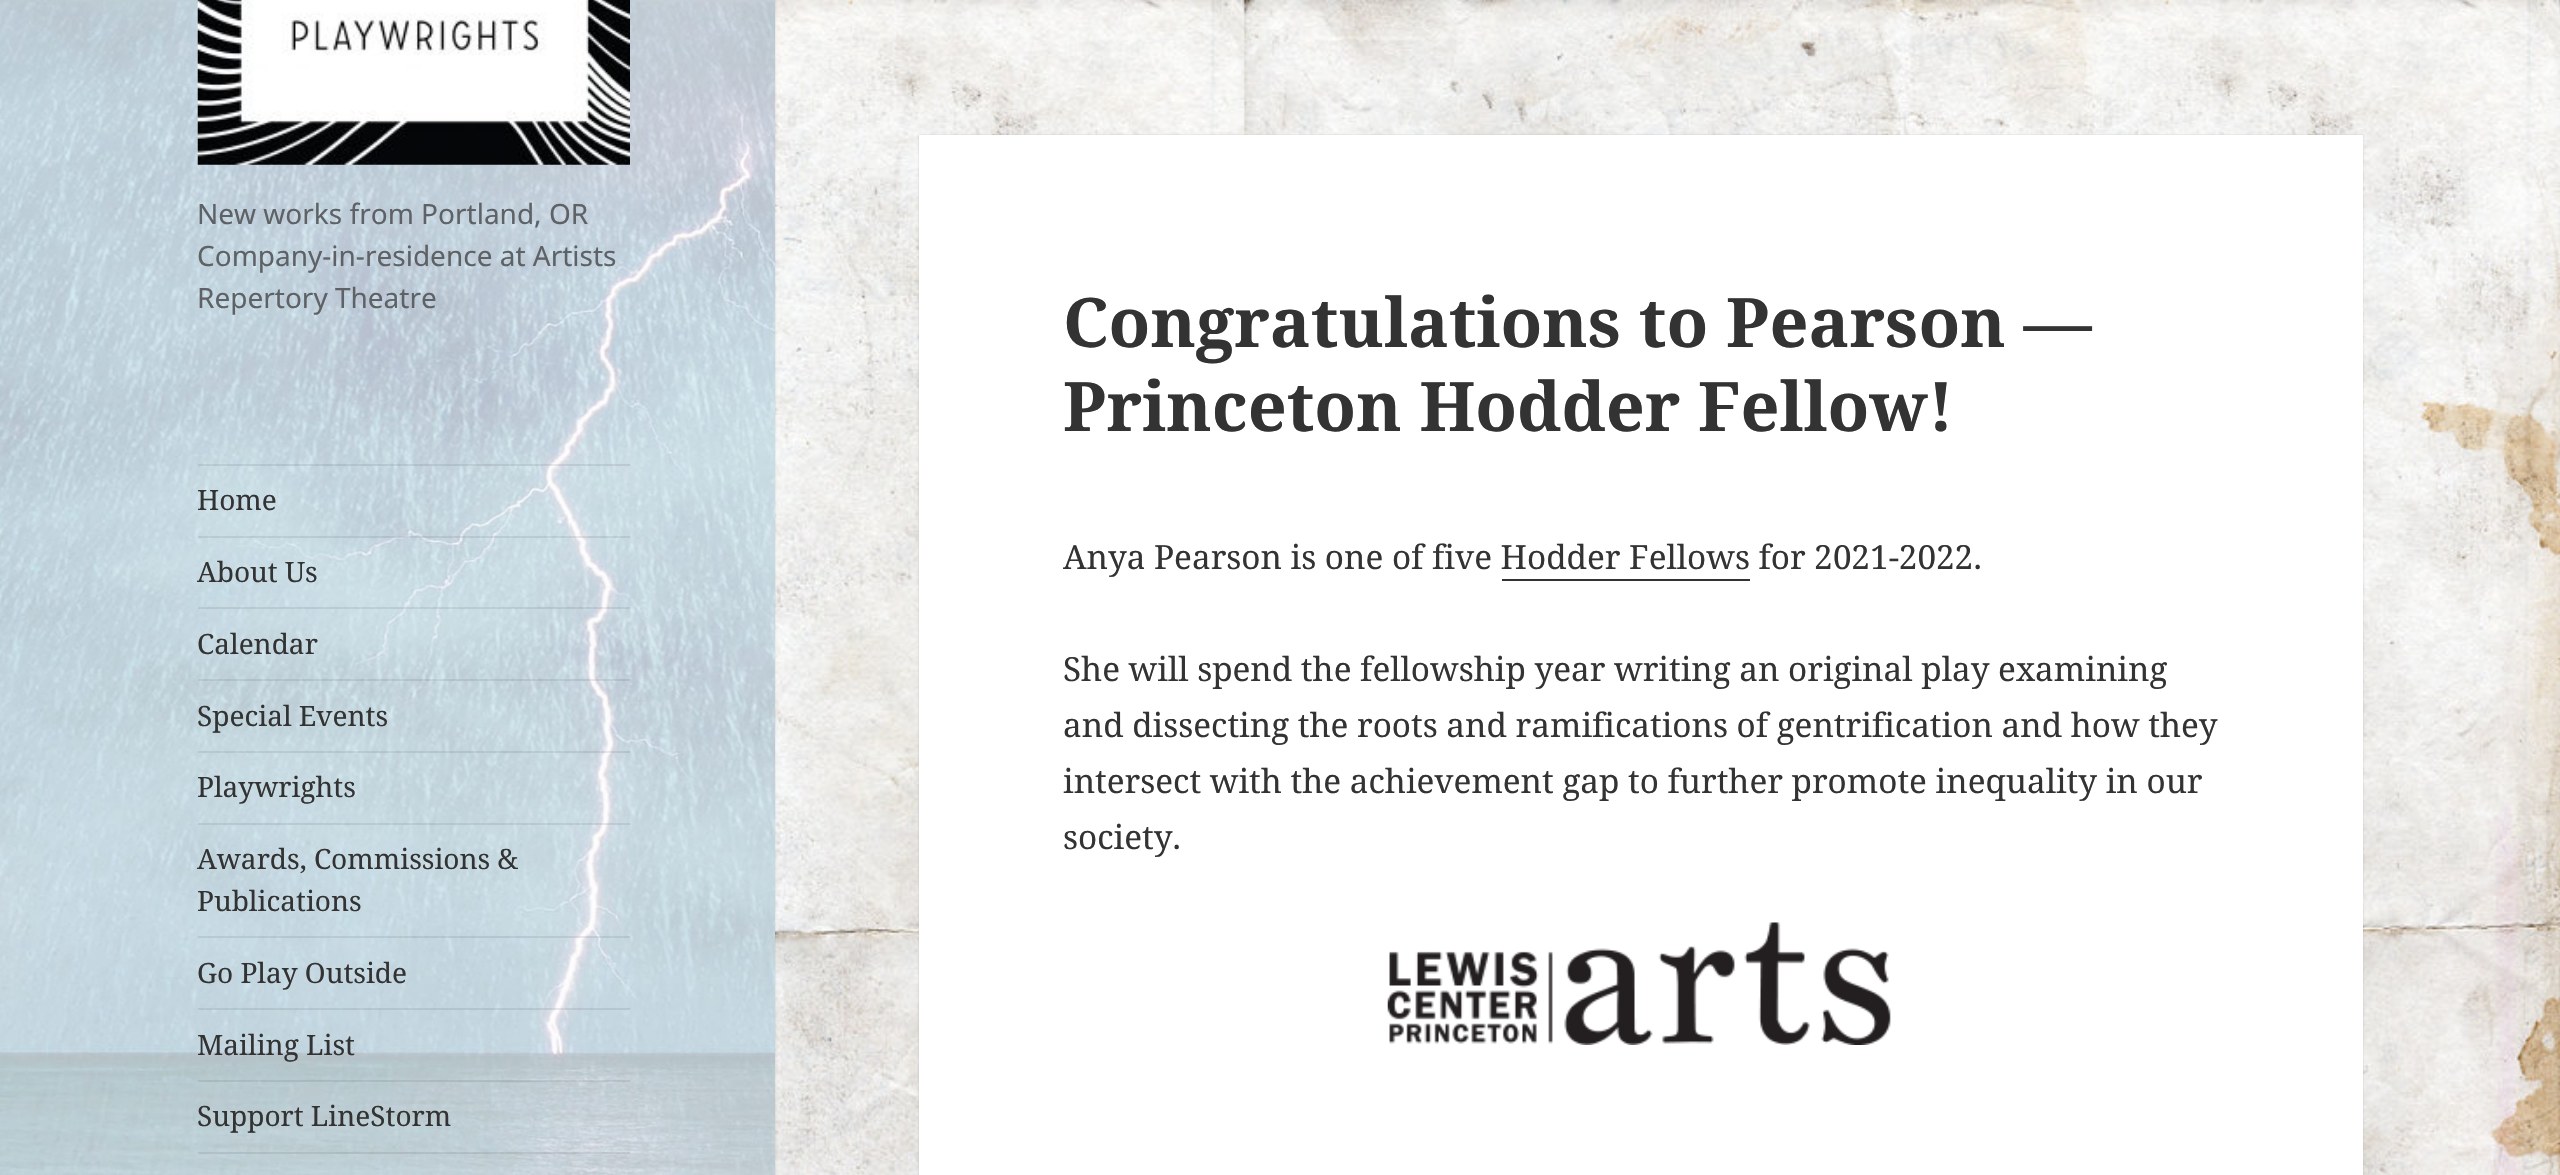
void draw(SkCanvas* canvas) {
    SkPaint paint;
    paint.setAntiAlias(true);
    auto face = [&](const char* family, int weight, float size, bool italic = false) {
        SkFontStyle style(weight, SkFontStyle::kNormal_Width,
            italic ? SkFontStyle::kItalic_Slant : SkFontStyle::kUpright_Slant);
        SkFont result(fontMgr->matchFamilyStyle(family, style), size);
        result.setSubpixel(true);
        return result;
    };
    auto write = [&](const char* s, float x, float y, const SkFont& font, SkColor color) {
        SkPaint ink(SkColor4f::FromColor(color));
        ink.setAntiAlias(true);
        canvas->drawString(s, x, y, font, ink);
    };
    auto block = [&](float x, float y, float w, float h, SkColor color) {
        SkPaint ink(SkColor4f::FromColor(color));
        ink.setAntiAlias(true);
        canvas->drawRect(SkRect::MakeXYWH(x, y, w, h), ink);
    };
    auto paste = [&](const char* path, float x, float y, float w, float h) {
        auto image = SkImages::DeferredFromEncodedData(SkData::MakeFromFileName(path));
        canvas->drawImageRect(image, SkRect::MakeXYWH(x, y, w, h), SkSamplingOptions());
    };
    canvas->clear(SK_ColorWHITE);
    paste("pic1.png", 775, 0, 1785, 1175);
    paint.setColor(SkColorSetARGB(38, 0, 0, 0));
    paint.setMaskFilter(SkMaskFilter::MakeBlur(kNormal_SkBlurStyle, 1));
    canvas->drawRect(SkRect::MakeXYWH(0, 0, 775, 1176), paint);
    paint.setMaskFilter(nullptr);
    paste("pic2.png", 0, 0, 775, 1175);
    paste("pic3.png", 197, 0, 433, 165);
    auto kFont1 = face("Noto Sans", 400, 28);
    write("New works from Portland, OR", 197, 224, kFont1, SkColorSetRGB(94, 98, 102));
    write("Company-in-residence at Artists", 197, 266, kFont1, SkColorSetRGB(94, 98, 102));
    write("Repertory Theatre", 197, 308, kFont1, SkColorSetRGB(94, 98, 102));
    block(198, 464, 432, 2, SkColorSetARGB(26, 51, 51, 51));
    block(198, 1152, 432, 2, SkColorSetARGB(26, 51, 51, 51));
    auto kFont2 = face("Noto Serif", 400, 28);
    write("Home", 197, 510, kFont2, SkColorSetRGB(51, 51, 51));
    block(198, 536, 432, 2, SkColorSetARGB(26, 51, 51, 51));
    write("About Us", 197, 582, kFont2, SkColorSetRGB(51, 51, 51));
    block(198, 607, 432, 2, SkColorSetARGB(26, 51, 51, 51));
    write("Calendar", 197, 654, kFont2, SkColorSetRGB(51, 51, 51));
    block(198, 679, 432, 2, SkColorSetARGB(26, 51, 51, 51));
    write("Special Events", 197, 726, kFont2, SkColorSetRGB(51, 51, 51));
    block(198, 751, 432, 2, SkColorSetARGB(26, 51, 51, 51));
    write("Playwrights", 197, 797, kFont2, SkColorSetRGB(51, 51, 51));
    block(198, 823, 432, 2, SkColorSetARGB(26, 51, 51, 51));
    write("Awards, Commissions &", 197, 869, kFont2, SkColorSetRGB(51, 51, 51));
    write("Publications", 197, 911, kFont2, SkColorSetRGB(51, 51, 51));
    block(198, 936, 432, 2, SkColorSetARGB(26, 51, 51, 51));
    write("Go Play Outside", 197, 983, kFont2, SkColorSetRGB(51, 51, 51));
    block(198, 1008, 432, 2, SkColorSetARGB(26, 51, 51, 51));
    write("Mailing List", 197, 1055, kFont2, SkColorSetRGB(51, 51, 51));
    block(198, 1080, 432, 2, SkColorSetARGB(26, 51, 51, 51));
    write("Support LineStorm", 197, 1126, kFont2, SkColorSetRGB(51, 51, 51));
    paint.setMaskFilter(SkMaskFilter::MakeBlur(kNormal_SkBlurStyle, 1));
    canvas->drawRect(SkRect::MakeXYWH(919, 135, 1444, 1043), paint);
    paint.setMaskFilter(nullptr);
    block(919, 135, 1444, 1040, SK_ColorWHITE);
    auto kFont3 = face("Noto Serif", 700, 68.25f);
    write("Congratulations to Pearson —", 1063, 347, kFont3, SkColorSetRGB(51, 51, 51));
    write("Princeton Hodder Fellow!", 1063, 431, kFont3, SkColorSetRGB(51, 51, 51));
    auto kFont4 = face("Noto Serif", 400, 33.25f);
    write("Anya Pearson is one of five Hodder Fellows for 2021-2022.", 1063, 569, kFont4, SkColorSetRGB(51, 51, 51));
    block(1502, 579, 248, 2, SkColorSetRGB(51, 51, 51));
    write("She will spend the fellowship year writing an original play examining", 1063, 681, kFont4, SkColorSetRGB(51, 51, 51));
    write("and dissecting the roots and ramifications of gentrification and how they", 1063, 737, kFont4, SkColorSetRGB(51, 51, 51));
    write("intersect with the achievement gap to further promote inequality in our", 1063, 793, kFont4, SkColorSetRGB(51, 51, 51));
    write("society.", 1063, 849, kFont4, SkColorSetRGB(51, 51, 51));
    paste("pic4.png", 1387, 922, 504, 123);
}
